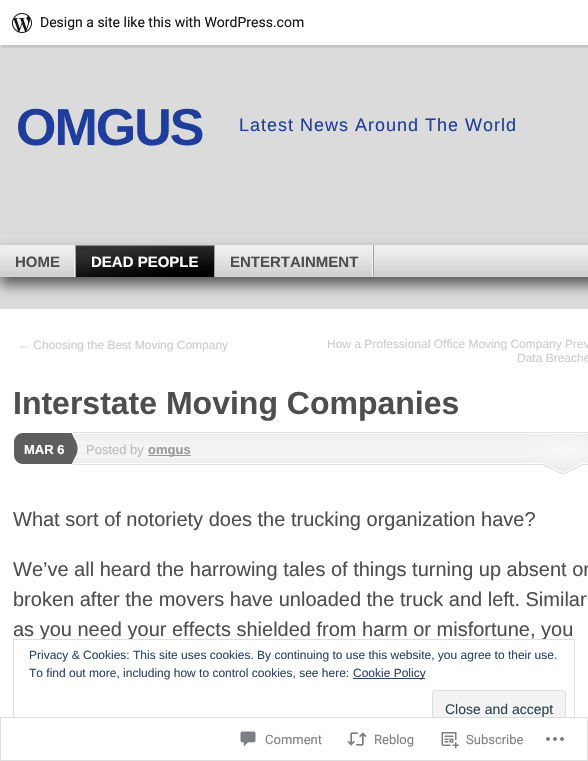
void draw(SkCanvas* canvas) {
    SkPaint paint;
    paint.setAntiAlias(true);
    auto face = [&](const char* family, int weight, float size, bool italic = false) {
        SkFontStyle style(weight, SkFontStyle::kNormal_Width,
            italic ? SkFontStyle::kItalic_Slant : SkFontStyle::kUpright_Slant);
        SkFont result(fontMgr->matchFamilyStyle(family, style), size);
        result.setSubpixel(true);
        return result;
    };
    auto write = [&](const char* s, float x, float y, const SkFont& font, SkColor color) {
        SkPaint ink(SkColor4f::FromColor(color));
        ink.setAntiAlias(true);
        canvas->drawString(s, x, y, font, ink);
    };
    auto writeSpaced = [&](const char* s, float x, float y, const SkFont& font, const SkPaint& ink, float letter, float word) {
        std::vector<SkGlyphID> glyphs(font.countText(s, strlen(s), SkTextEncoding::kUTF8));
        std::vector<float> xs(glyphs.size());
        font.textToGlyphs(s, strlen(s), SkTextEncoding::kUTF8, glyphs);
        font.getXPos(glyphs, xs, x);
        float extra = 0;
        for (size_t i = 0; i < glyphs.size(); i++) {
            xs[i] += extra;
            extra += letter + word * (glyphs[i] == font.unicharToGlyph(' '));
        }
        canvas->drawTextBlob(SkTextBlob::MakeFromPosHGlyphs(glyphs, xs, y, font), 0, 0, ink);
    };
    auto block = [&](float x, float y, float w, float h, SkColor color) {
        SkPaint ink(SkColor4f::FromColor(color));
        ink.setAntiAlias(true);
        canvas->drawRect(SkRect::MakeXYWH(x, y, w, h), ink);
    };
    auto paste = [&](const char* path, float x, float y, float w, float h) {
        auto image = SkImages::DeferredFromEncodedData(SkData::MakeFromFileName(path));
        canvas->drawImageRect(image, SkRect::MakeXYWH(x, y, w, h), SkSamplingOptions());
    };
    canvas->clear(SkColorSetRGB(219, 219, 219));
    paint.setColor(SkColorSetARGB(13, 0, 0, 0));
    paint.setMaskFilter(SkMaskFilter::MakeBlur(kNormal_SkBlurStyle, 1));
    canvas->drawRect(SkRect::MakeXYWH(0, 1, 588, 45), paint);
    paint.setMaskFilter(nullptr);
    paint.setColor(SkColorSetARGB(20, 0, 0, 0));
    canvas->drawPath(SkPathBuilder().moveTo(1, 45).lineTo(1, 48).lineTo(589, 48).lineTo(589, 3).lineTo(588, 3).lineTo(588, 45).close().detach(), paint);
    block(0, 0, 588, 45, SK_ColorWHITE);
    paste("pic1.png", 12, 13, 20, 20);
    auto kFont1 = face("Roboto", 400, 14);
    write("Design a site like this with WordPress.com", 40, 27, kFont1, SkColorSetRGB(23, 23, 23));
    auto kFont2 = face("Liberation Sans", 700, 52);
    paint.setColor(SkColorSetRGB(31, 62, 155));
    writeSpaced("OMGUS", 16, 145, kFont2, paint, -2, 0);
    auto kFont3 = face("Liberation Sans", 400, 18);
    writeSpaced("Latest News Around The World", 239, 131, kFont3, paint, 1, 0);
    paint.setColor(SkColorSetARGB(153, 0, 0, 0));
    paint.setMaskFilter(SkMaskFilter::MakeBlur(kNormal_SkBlurStyle, 7));
    canvas->drawRect(SkRect::MakeXYWH(0, 253, 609, 32), paint);
    paint.setMaskFilter(nullptr);
    block(0, 272, 588, 5, SkColorSetRGB(208, 208, 208));
    paste("pic2.png", 0, 245, 588, 27);
    paste("pic3.png", 74, 245, 2, 32);
    auto kFont4 = face("Liberation Sans", 700, 15);
    write("HOME", 15, 267, kFont4, SkColorSetRGB(78, 78, 78));
    paste("pic4.png", 214, 245, 1, 32);
    paste("pic5.png", 76, 245, 138, 32);
    write("DEAD PEOPLE", 91, 267, kFont4, SK_ColorWHITE);
    paste("pic3.png", 372, 245, 2, 32);
    write("ENTERTAINMENT", 230, 267, kFont4, SkColorSetRGB(78, 78, 78));
    block(0, 309, 588, 451, SK_ColorWHITE);
    auto kFont5 = face("Liberation Sans", 400, 12);
    write("← Choosing the Best Moving Company", 18, 349, kFont5, SkColorSetRGB(204, 204, 204));
    write("How a Professional Office Moving Company Prev", 327, 348, kFont5, SkColorSetRGB(204, 204, 204));
    write("Data Breache", 517, 362, kFont5, SkColorSetRGB(204, 204, 204));
    auto kFont6 = face("Liberation Sans", 700, 32);
    write("Interstate Moving Companies", 13, 414, kFont6, SkColorSetRGB(78, 78, 78));
    paste("pic6.png", 14, 433, 10, 31);
    paste("pic7.png", 24, 432, 56, 33);
    auto kFont7 = face("Liberation Sans", 700, 13);
    write("MAR 6", 24, 454, kFont7, SK_ColorWHITE);
    paste("pic8.png", 80, 432, 508, 42);
    auto kFont8 = face("Liberation Sans", 400, 13);
    write("Posted by", 86, 454, kFont8, SkColorSetRGB(187, 187, 187));
    block(148, 455, 43, 1, SkColorSetRGB(153, 153, 153));
    write("omgus", 148, 454, kFont7, SkColorSetRGB(153, 153, 153));
    auto kFont9 = face("Liberation Sans", 400, 20);
    write("What sort of notoriety does the trucking organization have?", 13, 526, kFont9, SkColorSetRGB(78, 78, 78));
    write("We’ve all heard the harrowing tales of things turning up absent or", 13, 576, kFont9, SkColorSetRGB(78, 78, 78));
    write("broken after the movers have unloaded the truck and left. Similar", 13, 606, kFont9, SkColorSetRGB(78, 78, 78));
    write("as you need your effects shielded from harm or misfortune, you", 13, 636, kFont9, SkColorSetRGB(78, 78, 78));
    block(40, 640, 504, 1, SK_ColorWHITE);
    paint.setStyle(SkPaint::kStroke_Style);
    paint.setStrokeWidth(1);
    paint.setColor(SkColorSetRGB(222, 222, 222));
    canvas->drawRect(SkRect::MakeXYWH(13.5f, 639.5f, 561, 98), paint);
    write("Privacy & Cookies: This site uses cookies. By continuing to use this website, you agree to their use.", 29, 659, kFont5, SkColorSetRGB(46, 68, 103));
    write("To find out more, including how to control cookies, see here:", 29, 677, kFont5, SkColorSetRGB(46, 68, 103));
    block(353, 678, 72, 1, SkColorSetRGB(46, 68, 103));
    write("Cookie Policy", 353, 677, kFont5, SkColorSetRGB(46, 68, 103));
    paint.setStyle(SkPaint::kFill_Style);
    paint.setColor(SkColorSetRGB(243, 243, 243));
    canvas->drawRoundRect(SkRect::MakeXYWH(432.5f, 690.5f, 133, 38), 2.5f, 2.5f, paint);
    paint.setStyle(SkPaint::kStroke_Style);
    paint.setColor(SkColorSetRGB(222, 222, 222));
    canvas->drawRoundRect(SkRect::MakeXYWH(432.5f, 690.5f, 133, 38), 2.5f, 2.5f, paint);
    auto kFont10 = face("Liberation Sans", 400, 14);
    write("Close and accept", 445, 714, kFont10, SkColorSetRGB(46, 68, 83));
    block(13, 718, 562, 20, SkColorSetARGB(250, 255, 255, 255));
    paint.setColor(SkColorSetRGB(221, 221, 223));
    canvas->drawRect(SkRect::MakeXYWH(0.5f, 717.5f, 587, 43), paint);
    paste("pic9.png", 240, 731, 16, 16);
    auto kFont11 = face("Roboto", 400, 13);
    write("Comment", 265, 744, kFont11, SkColorSetRGB(123, 127, 132));
    paste("pic10.png", 347, 732, 20, 14);
    write("Reblog", 374, 744, kFont11, SkColorSetRGB(123, 127, 132));
    paste("pic11.png", 441, 732, 18, 17);
    write("Subscribe", 466, 744, kFont11, SkColorSetRGB(123, 127, 132));
    paste("pic12.png", 546, 737, 18, 4);
}
